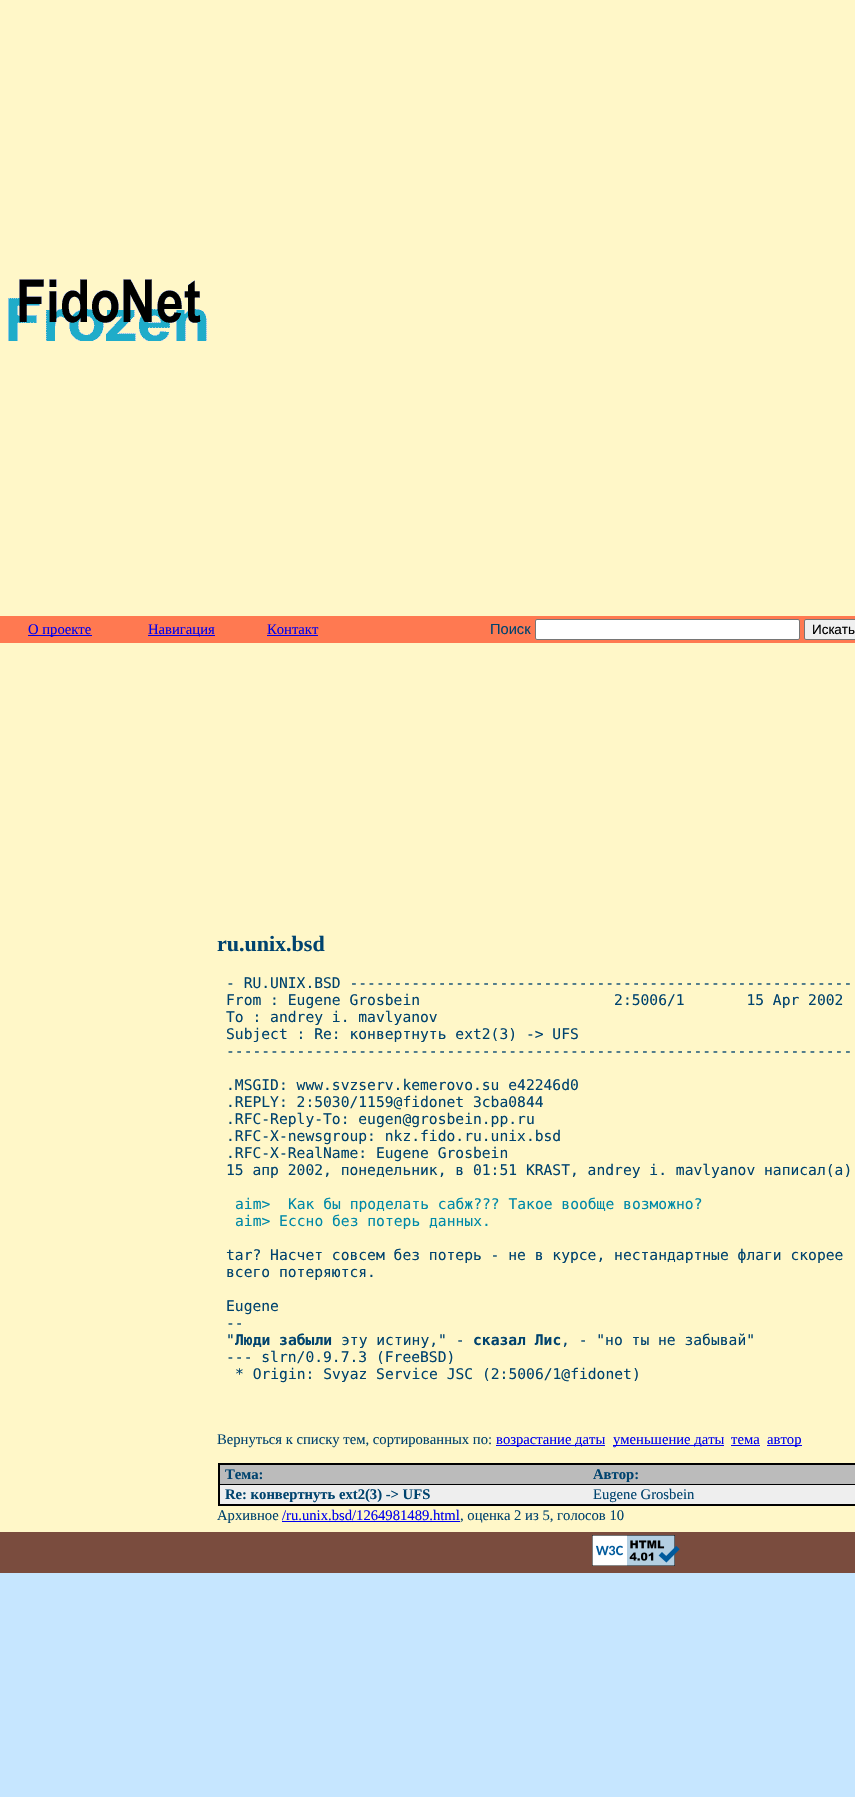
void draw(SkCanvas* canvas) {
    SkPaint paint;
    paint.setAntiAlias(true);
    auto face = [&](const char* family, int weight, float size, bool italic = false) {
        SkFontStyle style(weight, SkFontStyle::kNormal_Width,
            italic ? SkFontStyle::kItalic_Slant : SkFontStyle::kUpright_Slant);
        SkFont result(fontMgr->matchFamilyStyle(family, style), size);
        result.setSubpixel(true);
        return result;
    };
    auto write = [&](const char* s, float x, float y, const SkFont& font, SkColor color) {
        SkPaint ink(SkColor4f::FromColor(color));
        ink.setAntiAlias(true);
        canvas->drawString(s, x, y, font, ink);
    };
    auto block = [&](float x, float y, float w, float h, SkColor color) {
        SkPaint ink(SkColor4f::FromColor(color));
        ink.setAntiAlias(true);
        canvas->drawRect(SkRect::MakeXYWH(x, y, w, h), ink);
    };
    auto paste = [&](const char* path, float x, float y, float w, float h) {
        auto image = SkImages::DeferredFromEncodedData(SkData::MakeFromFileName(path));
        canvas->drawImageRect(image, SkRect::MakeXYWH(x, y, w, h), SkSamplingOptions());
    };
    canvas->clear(SkColorSetRGB(198, 230, 255));
    block(0, 0, 855, 616, SkColorSetRGB(255, 247, 200));
    paste("pic1.png", 8, 279, 199, 62);
    block(0, 616, 855, 27, SkColorSetRGB(255, 121, 81));
    block(28, 635, 64, 1, SkColorSetRGB(0, 0, 238));
    auto kFont1 = face("Liberation Serif", 400, 14.65f);
    write("О проекте", 28, 634, kFont1, SkColorSetRGB(0, 0, 238));
    block(148, 635, 67, 1, SkColorSetRGB(0, 0, 238));
    write("Навигация", 148, 634, kFont1, SkColorSetRGB(0, 0, 238));
    write("Контакт", 267, 634, kFont1, SkColorSetRGB(0, 0, 238));
    block(267, 635, 51, 1, SkColorSetRGB(0, 0, 238));
    auto kFont2 = face("Liberation Sans", 400, 14.65f);
    write("Поиск", 490, 634, kFont2, SkColorSetRGB(0, 67, 110));
    paint.setColor(SK_ColorWHITE);
    canvas->drawRoundRect(SkRect::MakeXYWH(535.5f, 619.5f, 264, 20), 1.5f, 1.5f, paint);
    paint.setStyle(SkPaint::kStroke_Style);
    paint.setStrokeWidth(1);
    paint.setColor(SkColorSetRGB(118, 118, 118));
    canvas->drawRoundRect(SkRect::MakeXYWH(535.5f, 619.5f, 264, 20), 1.5f, 1.5f, paint);
    paint.setStyle(SkPaint::kFill_Style);
    paint.setColor(SkColorSetRGB(239, 239, 239));
    canvas->drawRoundRect(SkRect::MakeXYWH(804.5f, 619.5f, 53, 20), 1.5f, 1.5f, paint);
    paint.setStyle(SkPaint::kStroke_Style);
    paint.setColor(SkColorSetRGB(118, 118, 118));
    canvas->drawRoundRect(SkRect::MakeXYWH(804.5f, 619.5f, 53, 20), 1.5f, 1.5f, paint);
    auto kFont3 = face("Liberation Sans", 400, 13.5f);
    write("Искать", 812, 634, kFont3, SK_ColorBLACK);
    block(0, 643, 855, 889, SkColorSetRGB(255, 247, 200));
    auto kFont4 = face("Liberation Serif", 700, 22);
    write("ru.unix.bsd", 217, 951, kFont4, SkColorSetRGB(0, 67, 110));
    auto kFont5 = face("DejaVu Sans Mono", 400, 14.65f);
    write("- RU.UNIX.BSD ---------------------------------------------------------", 226, 988, kFont5, SkColorSetRGB(0, 67, 110));
    write("From : Eugene Grosbein                      2:5006/1       15 Apr 2002", 226, 1005, kFont5, SkColorSetRGB(0, 67, 110));
    write("To : andrey i. mavlyanov", 226, 1022, kFont5, SkColorSetRGB(0, 67, 110));
    write("Subject : Re: конвертнуть ext2(3) -> UFS", 226, 1039, kFont5, SkColorSetRGB(0, 67, 110));
    write("-----------------------------------------------------------------------", 226, 1056, kFont5, SkColorSetRGB(0, 67, 110));
    write(".MSGID: www.svzserv.kemerovo.su e42246d0", 226, 1090, kFont5, SkColorSetRGB(0, 67, 110));
    write(".REPLY: 2:5030/1159@fidonet 3cba0844", 226, 1107, kFont5, SkColorSetRGB(0, 67, 110));
    write(".RFC-Reply-To: eugen@grosbein.pp.ru", 226, 1124, kFont5, SkColorSetRGB(0, 67, 110));
    write(".RFC-X-newsgroup: nkz.fido.ru.unix.bsd", 226, 1141, kFont5, SkColorSetRGB(0, 67, 110));
    write(".RFC-X-RealName: Eugene Grosbein", 226, 1158, kFont5, SkColorSetRGB(0, 67, 110));
    write("15 апр 2002, понедельник, в 01:51 KRAST, andrey i. mavlyanov написал(а)", 226, 1175, kFont5, SkColorSetRGB(0, 67, 110));
    write("aim>  Как бы проделать сабж?\077? Такое вообще возможно?", 235, 1209, kFont5, SkColorSetRGB(0, 137, 168));
    write("aim> Ессно без потерь данных.", 235, 1226, kFont5, SkColorSetRGB(0, 137, 168));
    write("tar? Hасчет совсем без потерь - не в курсе, нестандартные флаги скорее", 226, 1260, kFont5, SkColorSetRGB(0, 67, 110));
    write("всего потеряются.", 226, 1277, kFont5, SkColorSetRGB(0, 67, 110));
    write("Eugene", 226, 1311, kFont5, SkColorSetRGB(0, 67, 110));
    write("--", 226, 1328, kFont5, SkColorSetRGB(0, 67, 110));
    write("\"", 226, 1345, kFont5, SkColorSetRGB(0, 67, 110));
    auto kFont6 = face("DejaVu Sans Mono", 700, 14.65f);
    write("Люди забыли", 235, 1345, kFont6, SkColorSetRGB(0, 67, 110));
    write("эту истину,\" -", 341, 1345, kFont5, SkColorSetRGB(0, 67, 110));
    write("сказал Лис", 473, 1345, kFont6, SkColorSetRGB(0, 67, 110));
    write(", - \"но ты не забывай\"", 561, 1345, kFont5, SkColorSetRGB(0, 67, 110));
    write("--- slrn/0.9.7.3 (FreeBSD)", 226, 1362, kFont5, SkColorSetRGB(0, 67, 110));
    write("* Origin: Svyaz Service JSC (2:5006/1@fidonet)", 235, 1379, kFont5, SkColorSetRGB(0, 67, 110));
    write("Вернуться к списку тем, сортированных по:", 217, 1444, kFont1, SkColorSetRGB(0, 67, 110));
    block(496, 1445, 109, 1, SkColorSetRGB(0, 0, 238));
    write("возрастание даты", 496, 1444, kFont1, SkColorSetRGB(0, 0, 238));
    block(613, 1445, 111, 1, SkColorSetRGB(0, 0, 238));
    write("уменьшение даты", 613, 1444, kFont1, SkColorSetRGB(0, 0, 238));
    write("тема", 731, 1444, kFont1, SkColorSetRGB(0, 0, 238));
    block(731, 1445, 29, 1, SkColorSetRGB(0, 0, 238));
    block(767, 1445, 35, 1, SkColorSetRGB(0, 0, 238));
    write("автор", 767, 1444, kFont1, SkColorSetRGB(0, 0, 238));
    block(218, 1463, 637, 43, SK_ColorBLACK);
    block(220, 1465, 635, 19, SkColorSetRGB(187, 187, 187));
    auto kFont7 = face("Liberation Serif", 700, 14.65f);
    write("Тема:", 225, 1479, kFont7, SkColorSetRGB(0, 67, 110));
    write("Автор:", 593, 1479, kFont7, SkColorSetRGB(0, 67, 110));
    block(220, 1485, 635, 19, SkColorSetRGB(238, 238, 238));
    write("Re: конвертнуть ext2(3) -> UFS", 225, 1499, kFont7, SkColorSetRGB(0, 67, 110));
    write("Eugene Grosbein", 593, 1499, kFont1, SkColorSetRGB(0, 67, 110));
    write("Архивное", 217, 1520, kFont1, SkColorSetRGB(0, 67, 110));
    block(282, 1521, 178, 1, SkColorSetRGB(0, 0, 238));
    write("/ru.unix.bsd/1264981489.html", 282, 1520, kFont1, SkColorSetRGB(0, 0, 238));
    write(", оценка 2 из 5, голосов 10", 460, 1520, kFont1, SkColorSetRGB(0, 67, 110));
    block(0, 1532, 855, 41, SkColorSetRGB(122, 76, 62));
    paste("pic2.png", 592, 1535, 88, 31);
}
